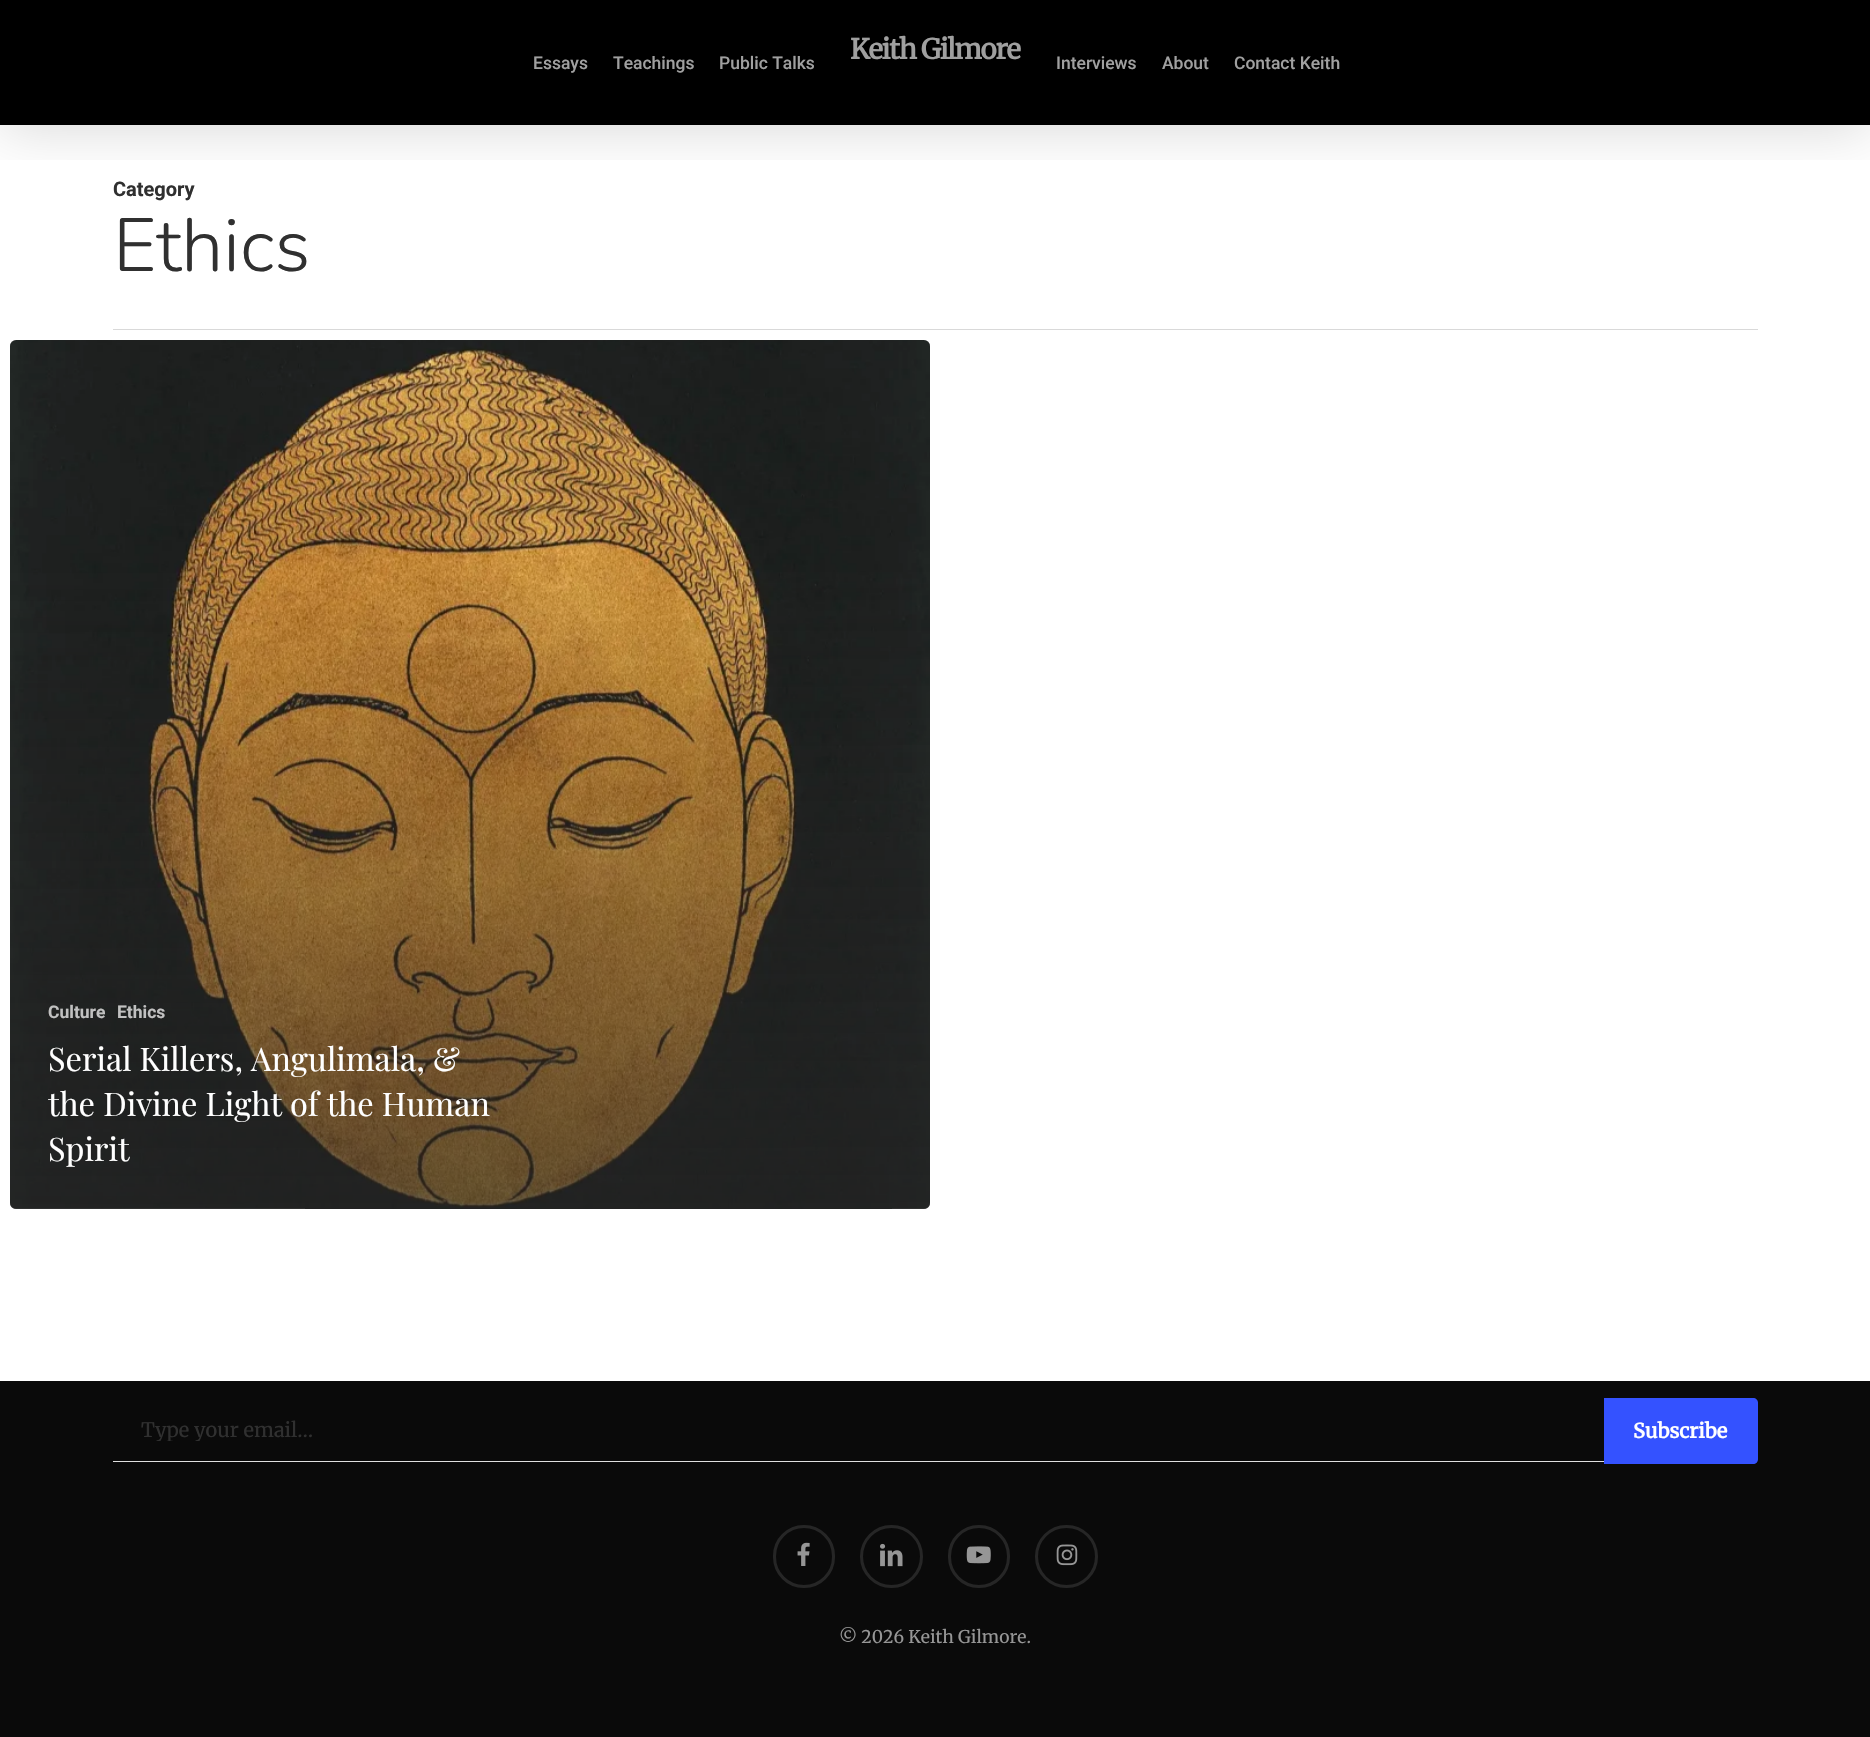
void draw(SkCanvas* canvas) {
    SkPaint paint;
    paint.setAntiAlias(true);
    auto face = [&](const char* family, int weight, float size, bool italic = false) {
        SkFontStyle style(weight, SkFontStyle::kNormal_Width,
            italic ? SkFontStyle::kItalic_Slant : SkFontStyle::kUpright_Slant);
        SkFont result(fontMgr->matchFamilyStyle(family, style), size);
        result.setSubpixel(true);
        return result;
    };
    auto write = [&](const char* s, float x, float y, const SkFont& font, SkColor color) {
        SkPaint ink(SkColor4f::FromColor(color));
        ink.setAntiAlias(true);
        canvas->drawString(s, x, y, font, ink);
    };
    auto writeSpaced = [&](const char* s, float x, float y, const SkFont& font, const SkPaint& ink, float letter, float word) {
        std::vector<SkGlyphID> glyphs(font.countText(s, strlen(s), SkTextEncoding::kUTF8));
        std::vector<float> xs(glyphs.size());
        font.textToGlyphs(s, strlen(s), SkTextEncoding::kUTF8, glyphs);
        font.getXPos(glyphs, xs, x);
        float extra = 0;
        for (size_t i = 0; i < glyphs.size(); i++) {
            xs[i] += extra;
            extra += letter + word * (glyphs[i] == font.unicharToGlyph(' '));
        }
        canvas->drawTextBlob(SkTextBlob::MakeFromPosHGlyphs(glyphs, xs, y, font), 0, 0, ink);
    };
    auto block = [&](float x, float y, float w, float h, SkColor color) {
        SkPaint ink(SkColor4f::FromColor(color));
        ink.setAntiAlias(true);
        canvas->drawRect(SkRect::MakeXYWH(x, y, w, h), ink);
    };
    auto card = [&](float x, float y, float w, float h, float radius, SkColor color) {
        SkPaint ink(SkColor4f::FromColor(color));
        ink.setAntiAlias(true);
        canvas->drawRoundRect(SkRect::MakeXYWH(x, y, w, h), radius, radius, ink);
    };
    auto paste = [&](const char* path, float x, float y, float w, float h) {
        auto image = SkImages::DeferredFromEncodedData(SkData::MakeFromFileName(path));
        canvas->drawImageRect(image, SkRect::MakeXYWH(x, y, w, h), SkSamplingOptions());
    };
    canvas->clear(SK_ColorWHITE);
    block(0, 0, 1870, 125, SK_ColorBLACK);
    canvas->save();
    canvas->clipRect(SkRect::MakeXYWH(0, 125, 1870, 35));
    paint.setColor(SkColorSetARGB(38, 0, 0, 0));
    paint.setMaskFilter(SkMaskFilter::MakeBlur(kNormal_SkBlurStyle, 28));
    canvas->drawRect(SkRect::MakeXYWH(0, 4, 1870, 125), paint);
    paint.setMaskFilter(nullptr);
    canvas->restore();
    auto kFont1 = face("Merriweather", 700, 27.5f);
    paint.setColor(SkColorSetRGB(160, 160, 160));
    writeSpaced("Keith Gilmore", 850, 59, kFont1, paint, -1.25f, 0);
    auto kFont2 = face("Roboto", 500, 17.5f);
    write("Essays", 533, 69, kFont2, SkColorSetRGB(160, 160, 160));
    write("Teachings", 613, 69, kFont2, SkColorSetRGB(160, 160, 160));
    write("Public Talks", 719, 69, kFont2, SkColorSetRGB(160, 160, 160));
    write("Interviews", 1056, 69, kFont2, SkColorSetRGB(160, 160, 160));
    write("About", 1162, 69, kFont2, SkColorSetRGB(160, 160, 160));
    write("Contact Keith", 1234, 69, kFont2, SkColorSetRGB(160, 160, 160));
    block(113, 329, 1645, 1, SkColorSetRGB(217, 217, 217));
    auto kFont3 = face("Roboto", 700, 20);
    write("Category", 113, 196, kFont3, SkColorSetRGB(48, 48, 48));
    auto kFont4 = face("Nunito", 300, 75);
    write("Ethics", 113, 271, kFont4, SkColorSetRGB(48, 48, 48));
    card(10, 340, 920, 869, 6, SkColorSetRGB(179, 179, 179));
    paste("pic1.png", 10, 340, 920, 869);
    {
        const SkColor colors[] = {SkColorSetARGB(0, 35, 35, 35), SkColorSetARGB(166, 35, 35, 35)};
        const float stops[] = {0, 1};
        const SkPoint ends[] = {{472, 559}, {473, 1213}};
        paint.setShader(SkGradientShader::MakeLinear(ends, colors, stops, 2, SkTileMode::kClamp));
        paint.setAlpha(255);
    }
    canvas->drawPath(SkPathBuilder().moveTo(10, 559).lineTo(930, 559).lineTo(930, 1203).cubicTo(930, 1206.5f, 927.5f, 1209, 924, 1209).lineTo(16, 1209).cubicTo(12.5f, 1209, 10, 1206.5f, 10, 1203).close().detach(), paint);
    auto kFont5 = face("Roboto", 700, 17.5f);
    write("Culture", 48, 1018, kFont5, SkColorSetRGB(193, 193, 193));
    write("Ethics", 117, 1018, kFont5, SkColorSetRGB(193, 193, 193));
    auto kFont6 = face("Playfair Display", 400, 32.5f);
    write("Serial Killers, Angulimala, &", 48, 1071, kFont6, SK_ColorWHITE);
    write("the Divine Light of the Human", 48, 1116, kFont6, SK_ColorWHITE);
    write("Spirit", 48, 1161, kFont6, SK_ColorWHITE);
    block(0, 1381, 1870, 356, SkColorSetRGB(10, 10, 10));
    block(113, 1461, 1491, 1, SkColorSetRGB(224, 224, 224));
    canvas->save();
    canvas->clipRect(SkRect::MakeXYWH(141, 1416, 1434, 25));
    auto kFont7 = face("Merriweather", 300, 20);
    write("Type your email…", 141, 1437, kFont7, SkColorSetRGB(48, 48, 48));
    canvas->restore();
    paint.setShader(nullptr);
    paint.setColor(SkColorSetRGB(52, 82, 255));
    canvas->drawPath(SkPathBuilder().moveTo(1604, 1398).lineTo(1753, 1398).cubicTo(1756, 1398, 1758, 1400, 1758, 1403).lineTo(1758, 1459).cubicTo(1758, 1462, 1756, 1464, 1753, 1464).lineTo(1604, 1464).close().detach(), paint);
    auto kFont8 = face("Merriweather", 700, 20);
    write("Subscribe", 1633, 1438, kFont8, SK_ColorWHITE);
    paste("pic2.png", 797, 1542, 13, 24);
    paint.setStyle(SkPaint::kStroke_Style);
    paint.setStrokeWidth(3);
    paint.setColor(SkColorSetRGB(38, 38, 38));
    canvas->drawRoundRect(SkRect::MakeXYWH(774.5f, 1526.5f, 59, 60), 29.5f, 29.5f, paint);
    paste("pic3.png", 880, 1543, 23, 24);
    canvas->drawCircle(891.5f, 1556.5f, 30, paint);
    paste("pic4.png", 966, 1546, 25, 18);
    canvas->drawRoundRect(SkRect::MakeXYWH(949.5f, 1526.5f, 59, 60), 29.5f, 29.5f, paint);
    paste("pic5.png", 1056, 1544, 22, 22);
    canvas->drawCircle(1066.5f, 1556.5f, 30, paint);
    auto kFont9 = face("Merriweather", 300, 17.5f);
    write("© 2026 Keith Gilmore.", 839, 1643, kFont9, SkColorSetRGB(150, 150, 150));
}
